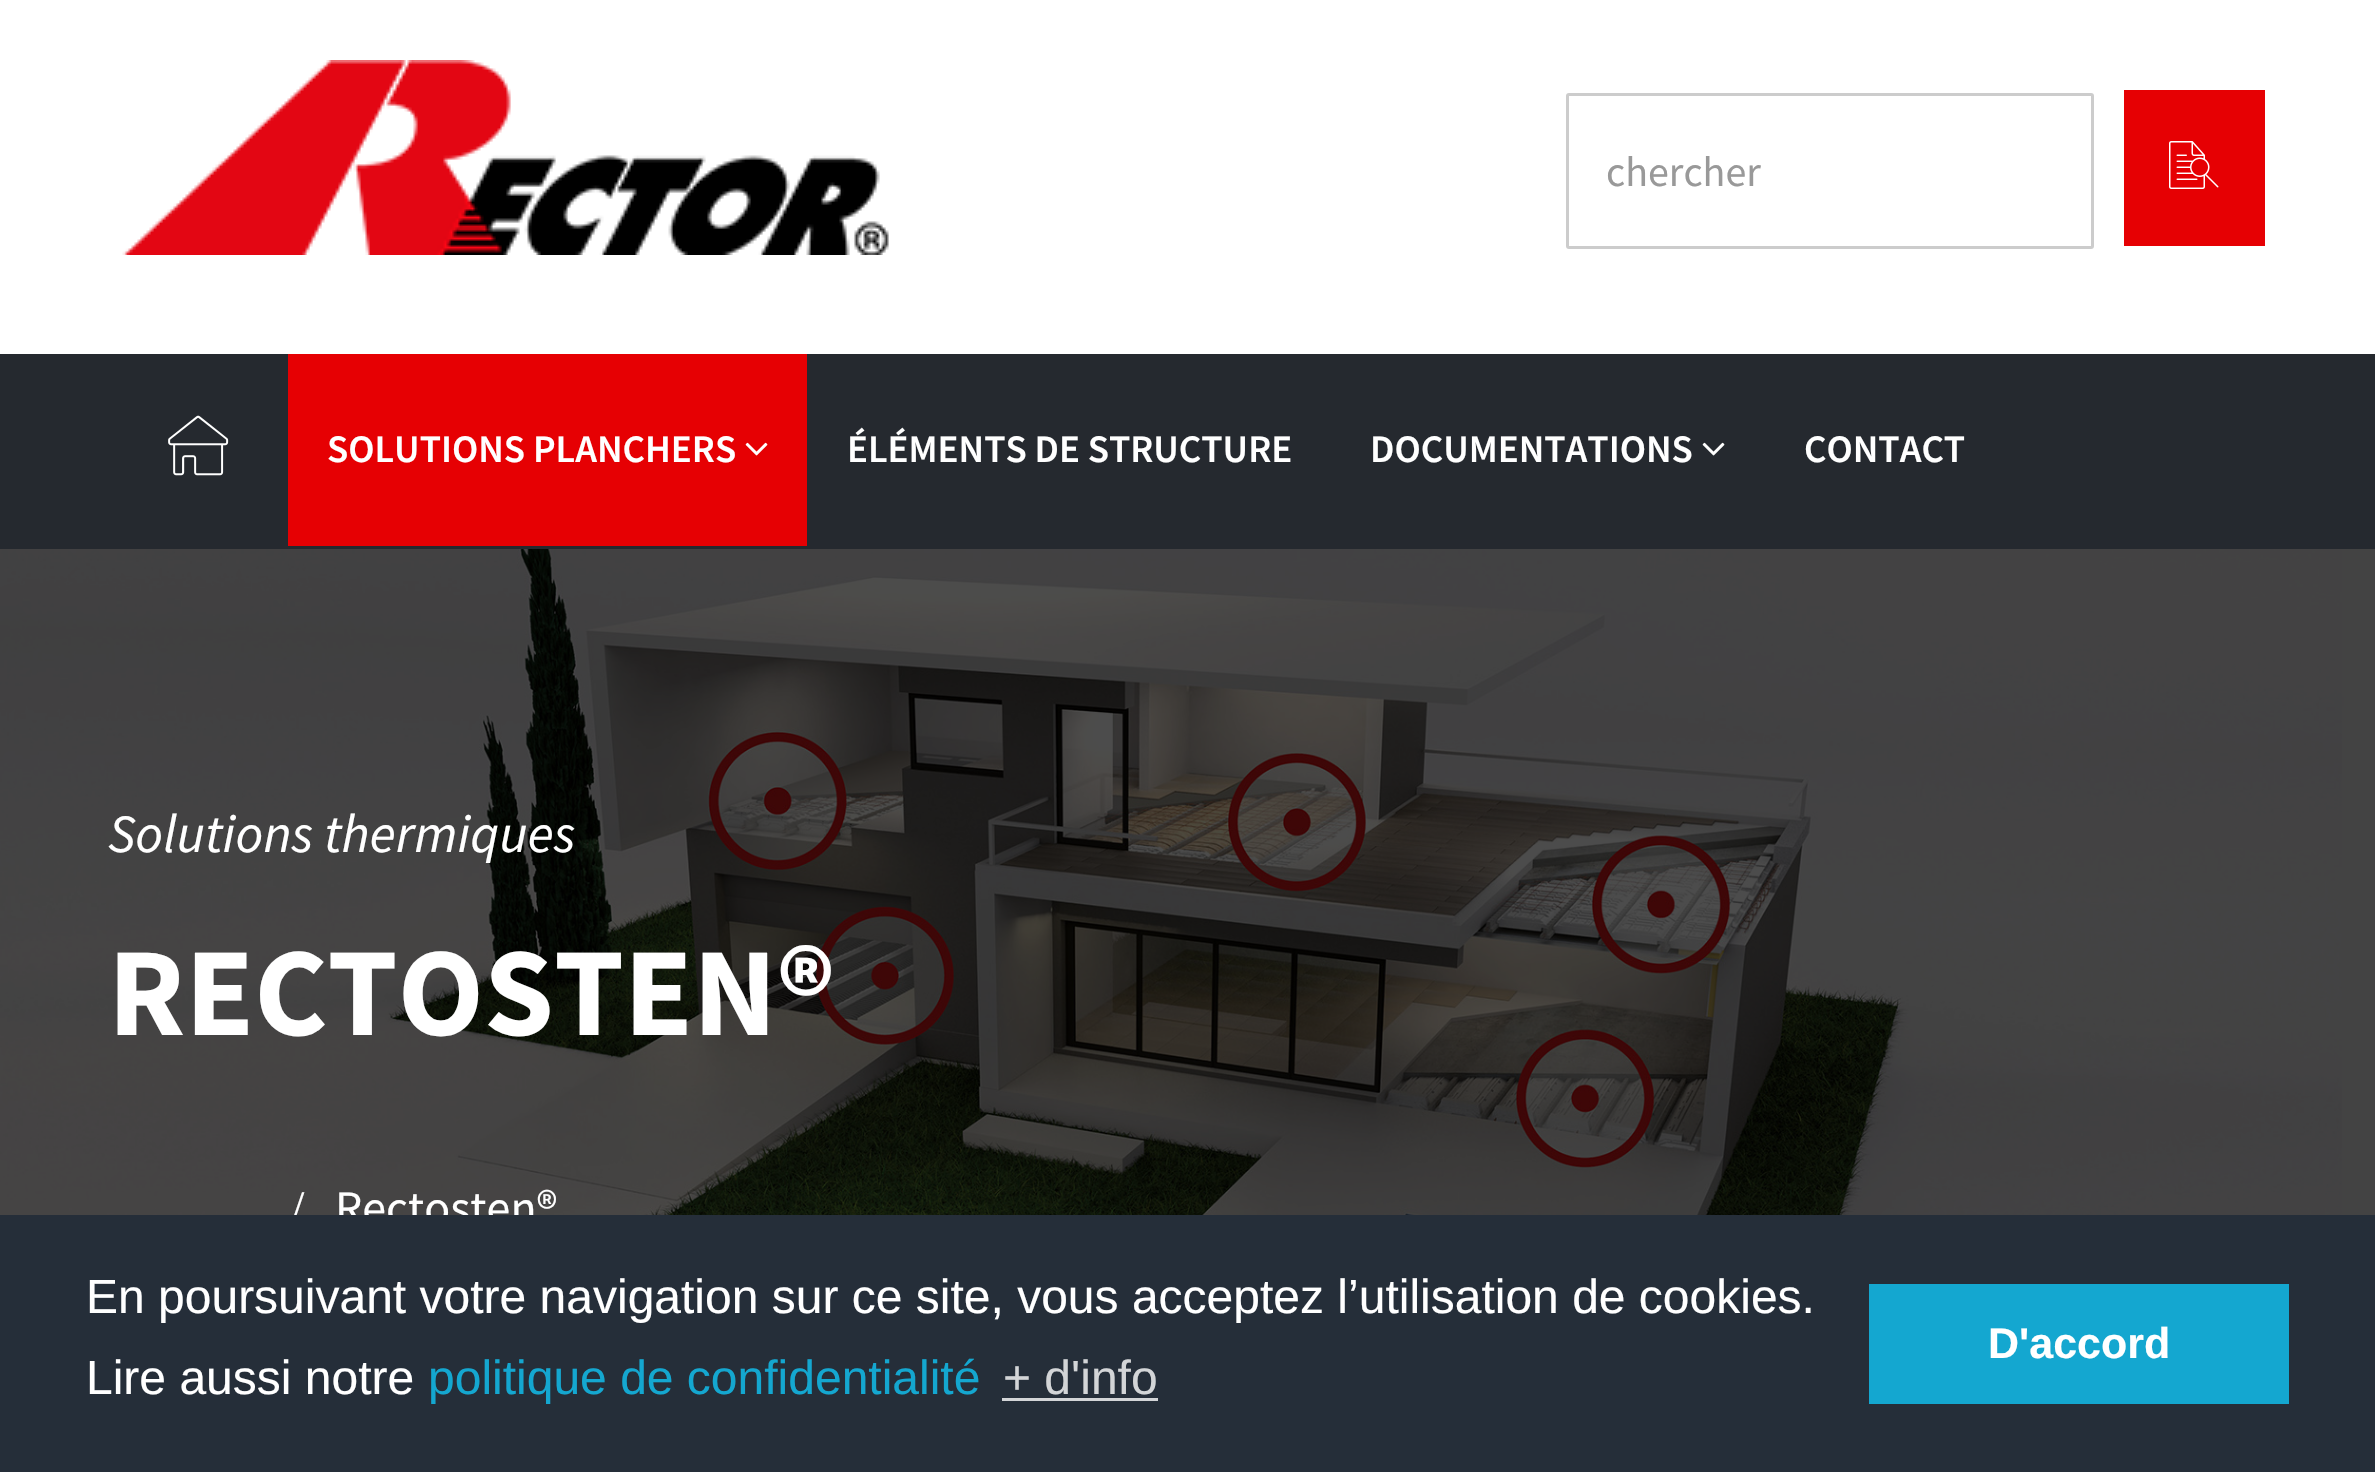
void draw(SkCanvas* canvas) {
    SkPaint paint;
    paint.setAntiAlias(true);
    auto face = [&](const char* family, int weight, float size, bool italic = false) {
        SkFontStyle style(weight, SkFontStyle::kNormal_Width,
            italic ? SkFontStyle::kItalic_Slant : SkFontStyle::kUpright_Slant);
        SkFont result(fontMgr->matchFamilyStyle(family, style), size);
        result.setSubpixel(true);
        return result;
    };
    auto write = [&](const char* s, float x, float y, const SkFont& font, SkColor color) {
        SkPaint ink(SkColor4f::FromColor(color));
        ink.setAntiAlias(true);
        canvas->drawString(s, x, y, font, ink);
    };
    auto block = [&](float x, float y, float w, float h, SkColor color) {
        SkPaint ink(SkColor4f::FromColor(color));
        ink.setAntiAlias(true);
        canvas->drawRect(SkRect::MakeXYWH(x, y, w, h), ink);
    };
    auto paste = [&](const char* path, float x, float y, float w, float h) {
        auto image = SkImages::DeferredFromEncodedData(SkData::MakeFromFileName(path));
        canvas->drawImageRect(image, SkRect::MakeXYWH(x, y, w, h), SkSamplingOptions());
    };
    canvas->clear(SK_ColorWHITE);
    paste("pic1.png", 122, 60, 767, 195);
    paint.setStyle(SkPaint::kStroke_Style);
    paint.setStrokeWidth(3);
    paint.setColor(SkColorSetRGB(204, 204, 204));
    canvas->drawRoundRect(SkRect::MakeXYWH(1567.5f, 94.5f, 525, 153), 1.5f, 1.5f, paint);
    auto kFont1 = face("Source Sans Pro", 400, 42);
    write("chercher", 1606, 186, kFont1, SkColorSetRGB(153, 153, 153));
    block(2124, 90, 141, 156, SkColorSetRGB(230, 0, 3));
    paste("pic2.png", 2169, 141, 50, 48);
    block(0, 354, 2375, 195, SkColorSetRGB(37, 41, 47));
    paste("pic3.png", 168, 415, 61, 61);
    block(288, 354, 519, 192, SkColorSetRGB(230, 0, 3));
    auto kFont2 = face("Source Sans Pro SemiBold", 600, 39);
    write("SOLUTIONS PLANCHERS", 327, 462, kFont2, SK_ColorWHITE);
    paste("pic4.png", 745, 442, 23, 14);
    write("ÉLÉMENTS DE STRUCTURE", 847, 462, kFont2, SK_ColorWHITE);
    write("DOCUMENTATIONS", 1370, 462, kFont2, SK_ColorWHITE);
    paste("pic5.png", 1702, 442, 23, 14);
    write("CONTACT", 1804, 462, kFont2, SK_ColorWHITE);
    paste("pic6.png", 0, 549, 2375, 666);
    auto kFont3 = face("Source Sans Pro", 400, 54, true);
    write("Solutions thermiques", 108, 852, kFont3, SK_ColorWHITE);
    auto kFont4 = face("Source Sans Pro", 700, 126);
    write("RECTOSTEN®", 108, 1035, kFont4, SK_ColorWHITE);
    auto kFont5 = face("Liberation Serif", 400, 48);
    write("/", 291, 1224, kFont5, SK_ColorWHITE);
    auto kFont6 = face("Source Sans Pro", 400, 48);
    write("Rectosten®", 335, 1224, kFont6, SK_ColorWHITE);
    block(0, 1215, 2375, 257, SkColorSetRGB(37, 46, 57));
    auto kFont7 = face("Liberation Sans", 400, 48);
    write("En poursuivant votre navigation sur ce site, vous acceptez l’utilisation de cookies.", 86, 1313, kFont7, SK_ColorWHITE);
    write("Lire aussi notre", 86, 1394, kFont7, SK_ColorWHITE);
    write("politique de confidentialité", 428, 1394, kFont7, SkColorSetRGB(20, 167, 208));
    write("+ d'info", 1003, 1394, kFont7, SkColorSetRGB(211, 213, 215));
    block(1002, 1398, 156, 3, SkColorSetRGB(211, 213, 215));
    block(1869, 1284, 420, 120, SkColorSetRGB(20, 167, 208));
    auto kFont8 = face("Liberation Sans", 700, 43);
    write("D'accord", 1988, 1358, kFont8, SK_ColorWHITE);
}
